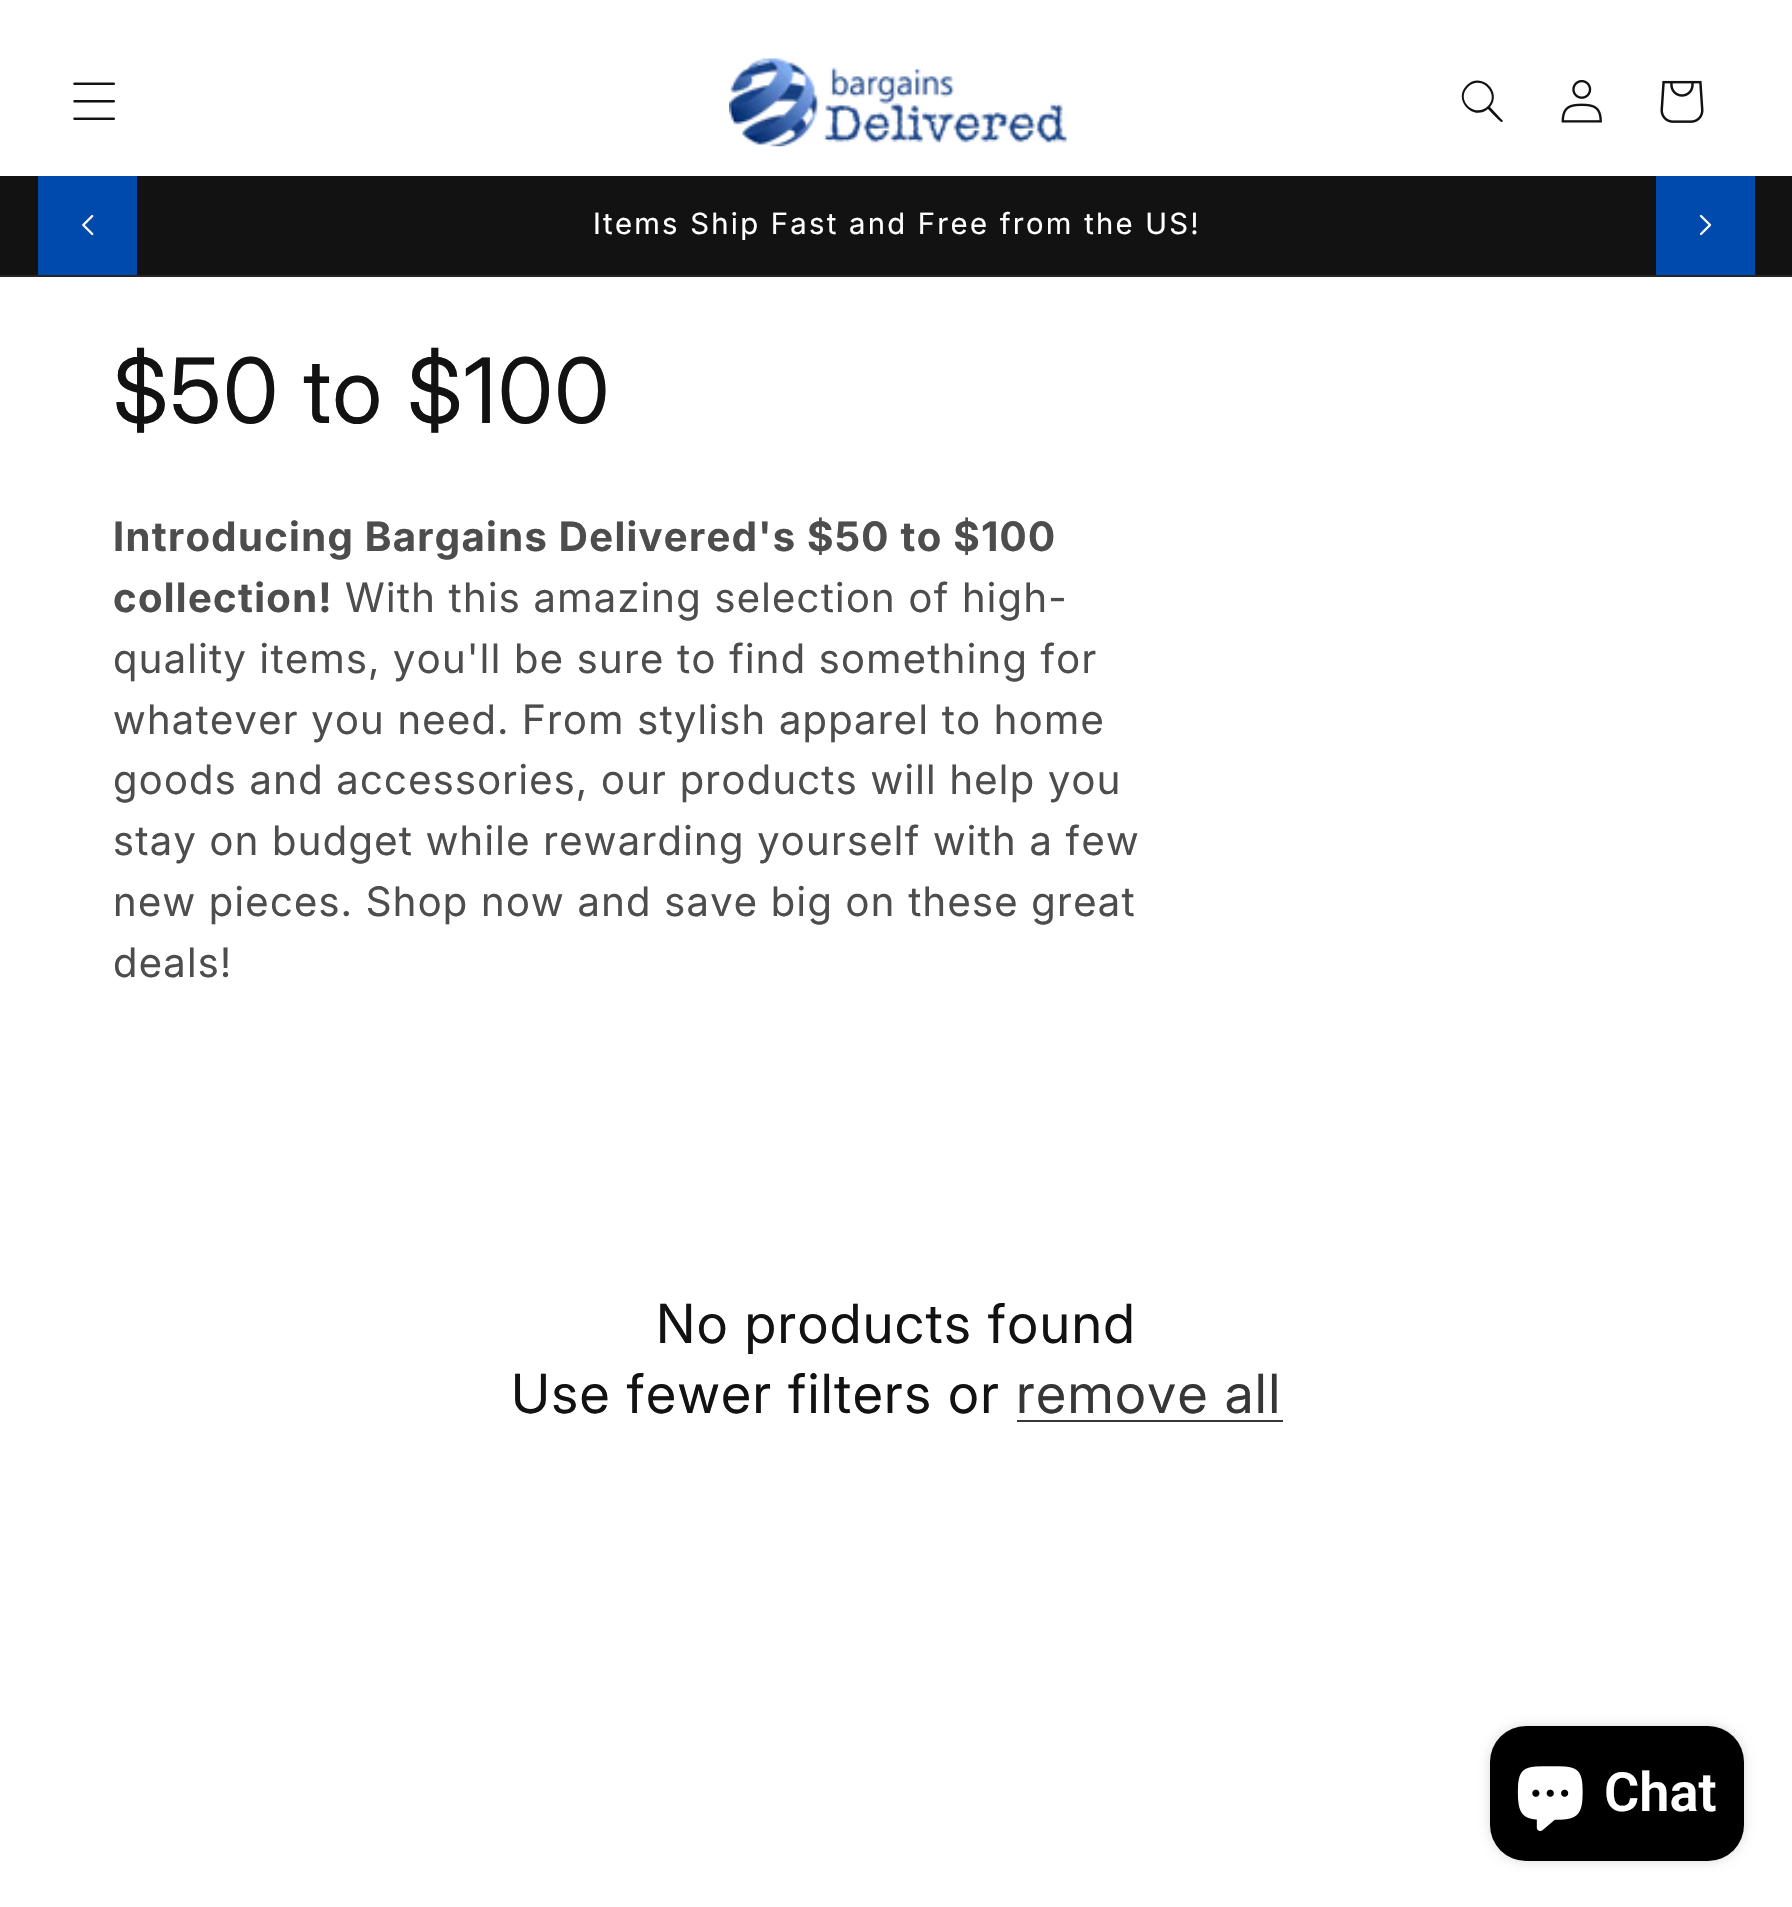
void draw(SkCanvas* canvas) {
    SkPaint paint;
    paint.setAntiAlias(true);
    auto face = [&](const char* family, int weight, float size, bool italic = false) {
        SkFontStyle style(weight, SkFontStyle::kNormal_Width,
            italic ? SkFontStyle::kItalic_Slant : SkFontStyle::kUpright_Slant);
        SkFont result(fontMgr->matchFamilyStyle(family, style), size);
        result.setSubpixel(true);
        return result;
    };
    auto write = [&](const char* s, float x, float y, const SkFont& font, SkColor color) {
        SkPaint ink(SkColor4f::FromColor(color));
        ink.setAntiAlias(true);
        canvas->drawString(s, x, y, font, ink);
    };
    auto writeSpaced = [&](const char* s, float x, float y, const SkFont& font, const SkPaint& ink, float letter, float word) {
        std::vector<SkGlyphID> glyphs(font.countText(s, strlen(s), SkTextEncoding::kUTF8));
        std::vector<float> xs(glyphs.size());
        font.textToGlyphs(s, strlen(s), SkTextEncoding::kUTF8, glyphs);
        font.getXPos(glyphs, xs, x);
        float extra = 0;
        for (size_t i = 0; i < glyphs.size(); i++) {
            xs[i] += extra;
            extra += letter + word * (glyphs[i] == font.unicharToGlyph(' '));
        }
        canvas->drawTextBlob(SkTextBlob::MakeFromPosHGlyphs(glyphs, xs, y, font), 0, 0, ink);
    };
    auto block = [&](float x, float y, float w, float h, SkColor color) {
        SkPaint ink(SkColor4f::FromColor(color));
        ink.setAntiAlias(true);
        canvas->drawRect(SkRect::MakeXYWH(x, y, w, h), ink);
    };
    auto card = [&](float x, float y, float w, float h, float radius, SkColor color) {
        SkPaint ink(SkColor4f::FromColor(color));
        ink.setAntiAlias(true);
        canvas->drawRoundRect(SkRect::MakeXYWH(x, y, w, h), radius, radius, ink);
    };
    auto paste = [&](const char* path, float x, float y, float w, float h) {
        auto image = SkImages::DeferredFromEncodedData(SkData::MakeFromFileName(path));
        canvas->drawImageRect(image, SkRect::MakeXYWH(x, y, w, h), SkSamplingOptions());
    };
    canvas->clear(SK_ColorWHITE);
    paste("pic1.png", 73, 82, 42, 38);
    paste("pic2.png", 729, 58, 338, 89);
    paint.setColor(SkColorSetRGB(18, 18, 18));
    canvas->drawPath(SkPathBuilder(SkPathFillType::kEvenOdd).moveTo(1488, 106).cubicTo(1475, 119, 1455, 100, 1468, 87).cubicTo(1481, 74, 1500, 94, 1488, 106).close().moveTo(1488, 109).cubicTo(1473, 122, 1452, 99, 1467, 85).cubicTo(1481, 71, 1503, 92, 1490, 107).lineTo(1503, 121).lineTo(1502, 122).cubicTo(1501, 123, 1490, 111, 1488, 109).close().detach(), paint);
    paste("pic3.png", 1561, 79, 41, 44);
    paste("pic4.png", 1660, 80, 44, 43);
    block(0, 176, 1792, 99, SkColorSetRGB(18, 18, 18));
    block(0, 275, 1792, 2, SkColorSetRGB(37, 37, 37));
    block(38, 176, 99, 99, SkColorSetRGB(0, 74, 173));
    paste("pic5.png", 82, 214, 12, 22);
    auto kFont1 = face("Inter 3", 400, 29.25f);
    paint.setColor(SK_ColorWHITE);
    writeSpaced("Items Ship Fast and Free from the US!", 593, 234, kFont1, paint, 2.25f, 0);
    block(1656, 176, 99, 99, SkColorSetRGB(0, 74, 173));
    paste("pic6.png", 1699, 214, 13, 22);
    auto kFont2 = face("Inter", 400, 90);
    paint.setColor(SkColorSetRGB(18, 18, 18));
    writeSpaced("$50 to $100", 113, 423, kFont2, paint, 1.35f, 0);
    auto kFont3 = face("Inter", 700, 40.5f);
    paint.setColor(SkColorSetRGB(77, 77, 77));
    writeSpaced("Introducing Bargains Delivered's $50 to $100", 113, 551, kFont3, paint, 1.35f, 0);
    writeSpaced("collection!", 113, 612, kFont3, paint, 1.35f, 0);
    auto kFont4 = face("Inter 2", 400, 40.5f);
    writeSpaced("With this amazing selection of high-", 345, 612, kFont4, paint, 1.35f, 0);
    writeSpaced("quality items, you'll be sure to find something for", 113, 673, kFont4, paint, 1.35f, 0);
    writeSpaced("whatever you need. From stylish apparel to home", 113, 734, kFont4, paint, 1.35f, 0);
    writeSpaced("goods and accessories, our products will help you", 113, 794, kFont4, paint, 1.35f, 0);
    writeSpaced("stay on budget while rewarding yourself with a few", 113, 855, kFont4, paint, 1.35f, 0);
    writeSpaced("new pieces. Shop now and save big on these great", 113, 916, kFont4, paint, 1.35f, 0);
    writeSpaced("deals!", 113, 977, kFont4, paint, 1.35f, 0);
    auto kFont5 = face("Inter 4", 400, 54);
    paint.setColor(SkColorSetRGB(18, 18, 18));
    writeSpaced("No products found", 656, 1343, kFont5, paint, 1.35f, 0);
    writeSpaced("Use fewer filters or", 511, 1413, kFont5, paint, 1.35f, 0);
    paint.setColor(SkColorSetRGB(54, 54, 54));
    writeSpaced("remove all", 1016, 1413, kFont5, paint, 1.35f, 0);
    block(1017, 1420, 266, 2, SkColorSetRGB(54, 54, 54));
    paint.setColor(SkColorSetARGB(38, 0, 0, 0));
    paint.setMaskFilter(SkMaskFilter::MakeBlur(kNormal_SkBlurStyle, 5.5f));
    canvas->drawRoundRect(SkRect::MakeXYWH(1490, 1726, 254, 135), 36, 36, paint);
    paint.setMaskFilter(nullptr);
    card(1490, 1726, 254, 135, 36, SK_ColorBLACK);
    paste("pic7.png", 1517, 1766, 66, 65);
    auto kFont6 = face("Roboto", 600, 54);
    write("Chat", 1604, 1811, kFont6, SK_ColorWHITE);
}
